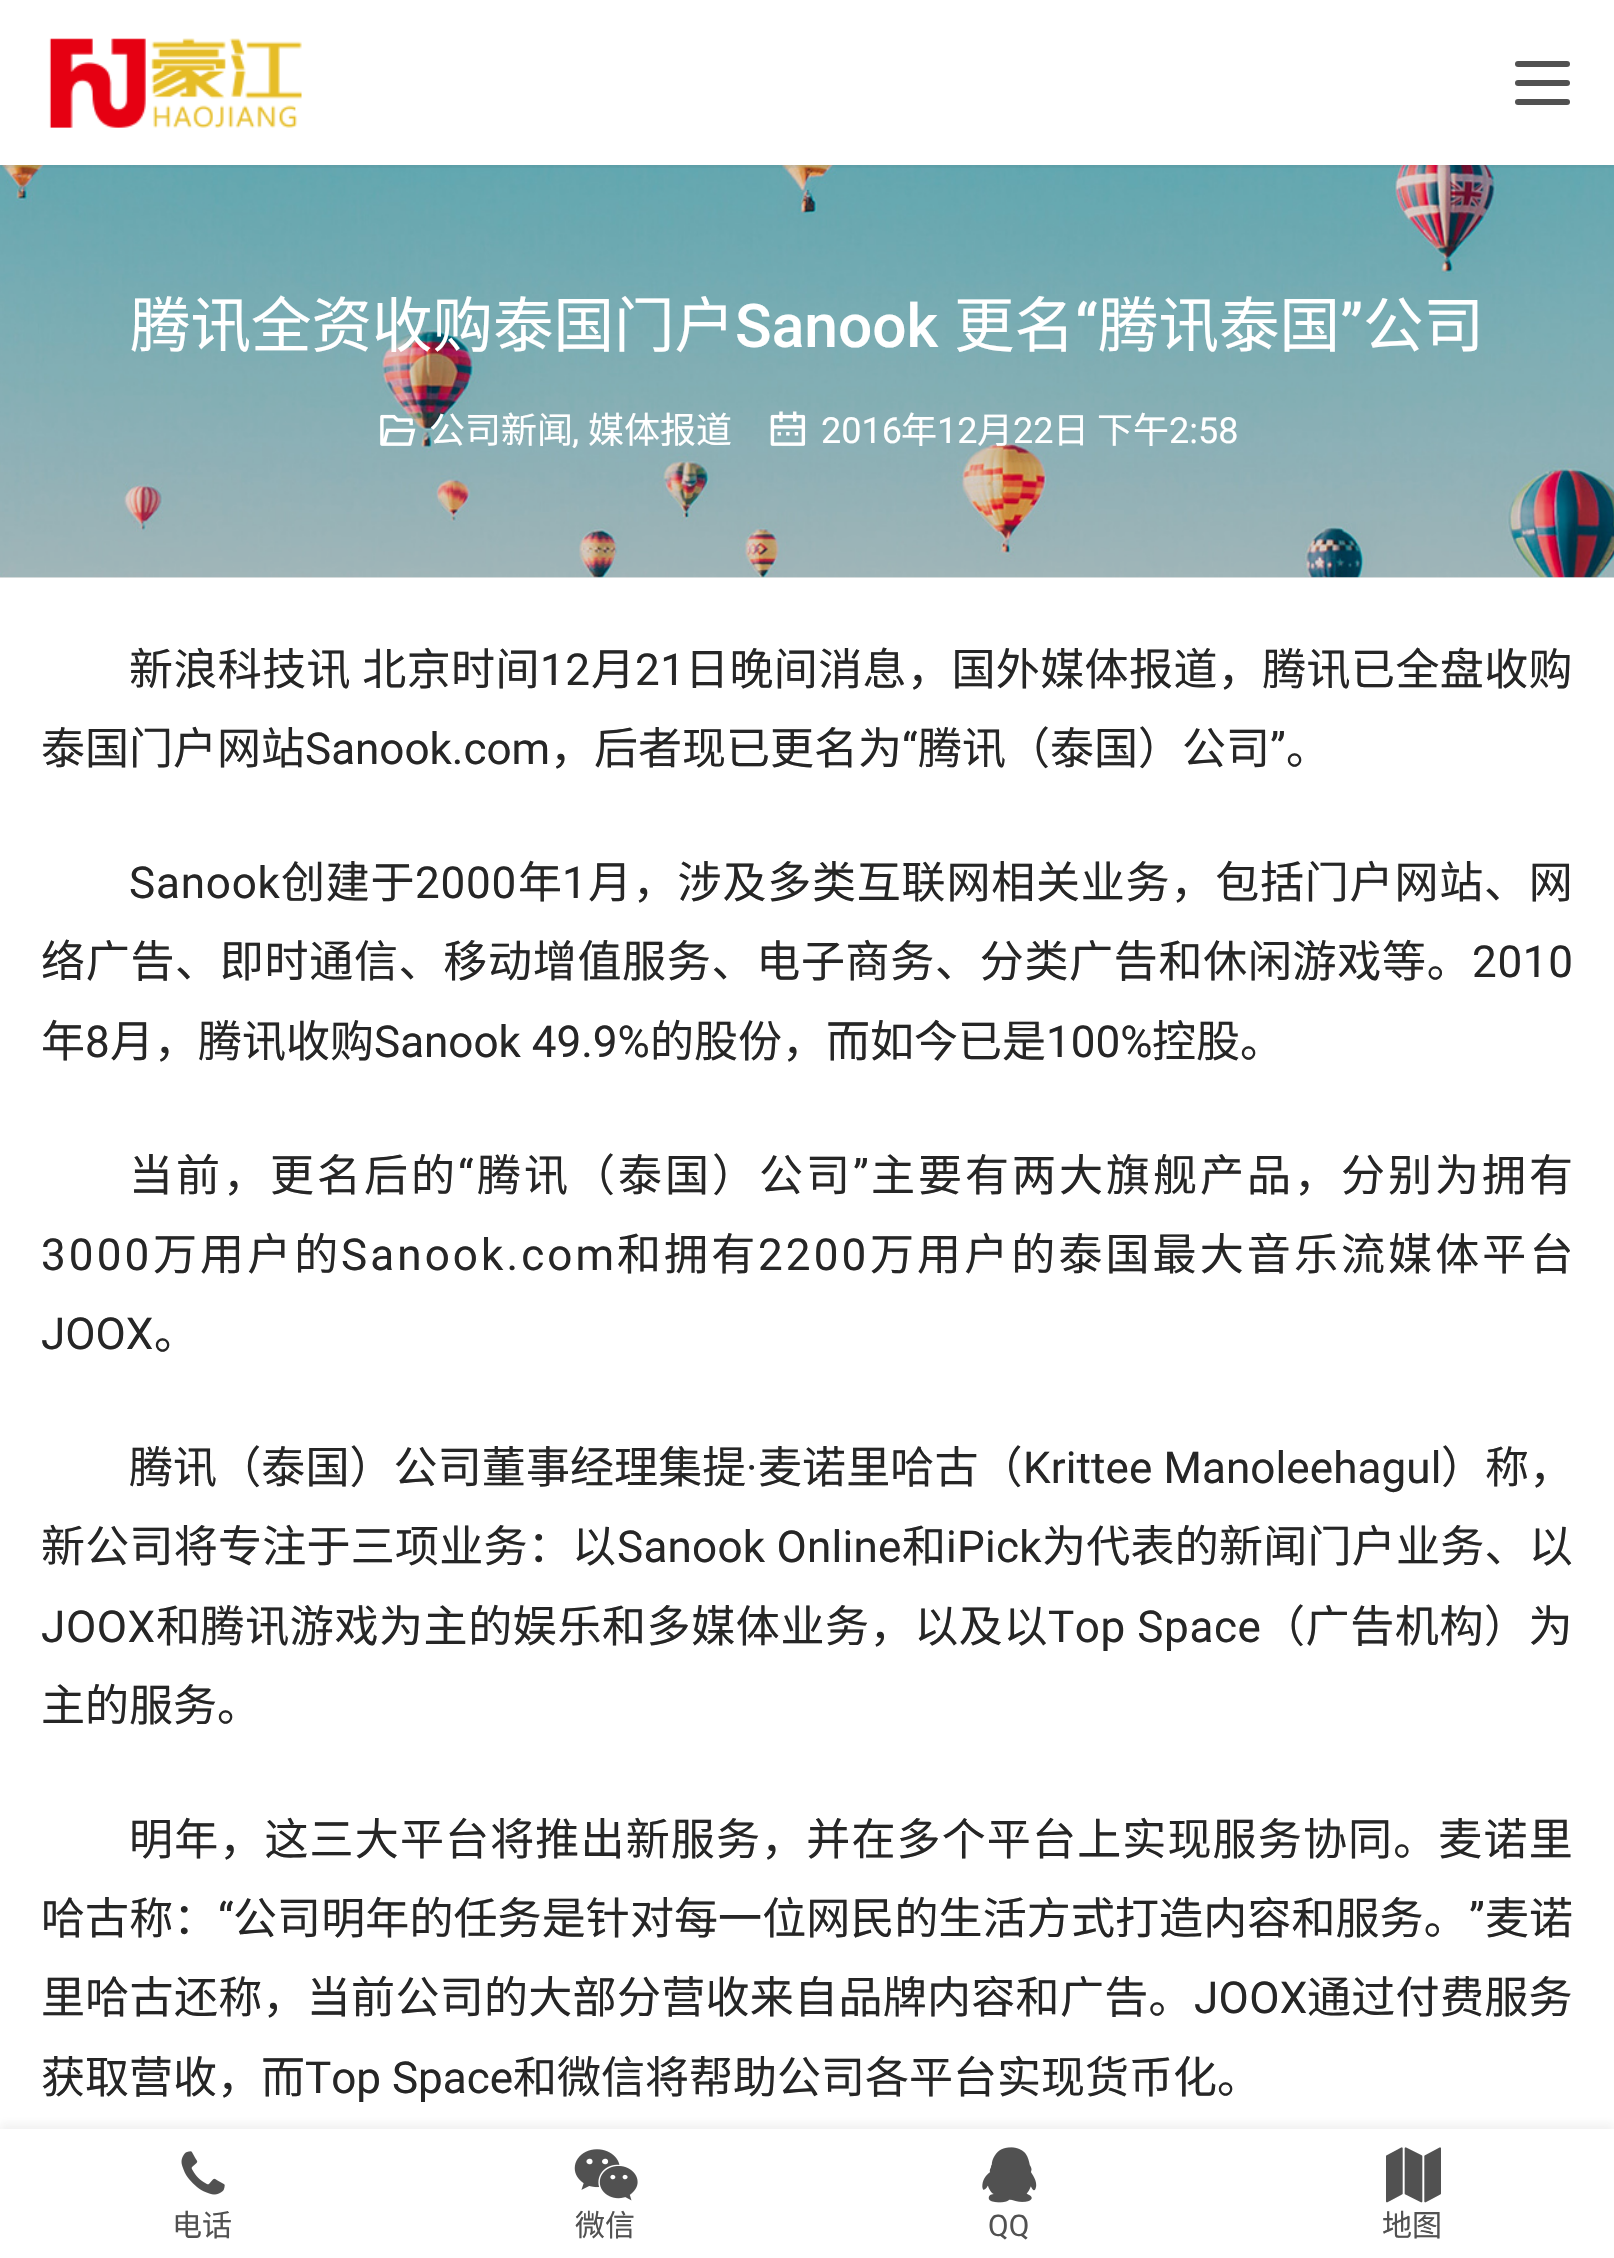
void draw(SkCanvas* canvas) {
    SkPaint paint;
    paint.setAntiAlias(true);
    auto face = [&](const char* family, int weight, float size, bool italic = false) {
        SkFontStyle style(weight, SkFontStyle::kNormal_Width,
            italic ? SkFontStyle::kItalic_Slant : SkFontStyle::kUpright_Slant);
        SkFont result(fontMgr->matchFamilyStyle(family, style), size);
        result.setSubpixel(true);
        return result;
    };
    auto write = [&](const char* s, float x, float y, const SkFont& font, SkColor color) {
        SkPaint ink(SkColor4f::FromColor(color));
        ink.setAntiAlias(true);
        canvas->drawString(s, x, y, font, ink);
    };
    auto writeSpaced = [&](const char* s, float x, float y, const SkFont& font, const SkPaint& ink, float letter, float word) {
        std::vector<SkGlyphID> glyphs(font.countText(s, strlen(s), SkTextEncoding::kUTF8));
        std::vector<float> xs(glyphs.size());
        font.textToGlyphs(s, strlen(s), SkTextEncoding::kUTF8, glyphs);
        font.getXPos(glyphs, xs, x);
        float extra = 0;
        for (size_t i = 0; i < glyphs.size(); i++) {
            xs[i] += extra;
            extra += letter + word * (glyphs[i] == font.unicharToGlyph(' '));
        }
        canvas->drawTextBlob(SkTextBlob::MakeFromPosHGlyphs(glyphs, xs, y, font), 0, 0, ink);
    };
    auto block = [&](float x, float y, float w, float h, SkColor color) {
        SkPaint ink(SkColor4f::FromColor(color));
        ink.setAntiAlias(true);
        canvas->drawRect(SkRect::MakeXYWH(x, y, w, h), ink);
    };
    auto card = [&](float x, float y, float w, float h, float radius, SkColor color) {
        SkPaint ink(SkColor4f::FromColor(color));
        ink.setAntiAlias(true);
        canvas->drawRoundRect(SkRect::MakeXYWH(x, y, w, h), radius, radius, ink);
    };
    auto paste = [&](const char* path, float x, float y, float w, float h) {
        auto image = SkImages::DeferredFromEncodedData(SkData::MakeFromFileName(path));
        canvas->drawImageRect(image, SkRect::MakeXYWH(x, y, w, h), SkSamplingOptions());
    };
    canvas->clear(SK_ColorWHITE);
    block(0, 577, 1614, 1, SkColorSetRGB(230, 230, 230));
    paste("pic2.png", 0, 165, 1614, 413);
    canvas->save();
    canvas->clipRect(SkRect::MakeXYWH(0, 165, 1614, 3));
    paint.setColor(SkColorSetARGB(13, 0, 0, 0));
    paint.setMaskFilter(SkMaskFilter::MakeBlur(kNormal_SkBlurStyle, 1.5f));
    canvas->drawRect(SkRect::MakeXYWH(0, 3, 1614, 165), paint);
    paint.setMaskFilter(nullptr);
    canvas->restore();
    paste("pic1.png", 49, 38, 253, 90);
    card(1515, 61, 55, 6, 3, SkColorSetRGB(81, 81, 81));
    card(1515, 80, 55, 6, 3, SkColorSetRGB(81, 81, 81));
    card(1515, 99, 55, 6, 3, SkColorSetRGB(81, 81, 81));
    auto kFont1 = face("Noto Sans CJK SC", 400, 60.5f);
    write("腾讯全资收购泰国门户", 130, 347, kFont1, SK_ColorWHITE);
    auto kFont2 = face("Roboto", 500, 60.5f);
    write("Sanook", 735, 347, kFont2, SK_ColorWHITE);
    write("更名", 954, 347, kFont1, SK_ColorWHITE);
    write("“", 1075, 347, kFont2, SK_ColorWHITE);
    write("腾讯泰国", 1098, 347, kFont1, SK_ColorWHITE);
    write("”", 1340, 347, kFont2, SK_ColorWHITE);
    write("公司", 1363, 347, kFont1, SK_ColorWHITE);
    paste("pic3.png", 380, 414, 36, 32);
    auto kFont3 = face("Noto Sans CJK SC", 400, 36);
    write("公司新闻", 429, 443, kFont3, SK_ColorWHITE);
    auto kFont4 = face("Roboto", 400, 36);
    write(",", 572, 443, kFont4, SK_ColorWHITE);
    write("媒体报道", 588, 443, kFont3, SK_ColorWHITE);
    paste("pic4.png", 770, 411, 36, 35);
    write("2016", 821, 443, kFont4, SK_ColorWHITE);
    write("年", 901, 443, kFont3, SK_ColorWHITE);
    write("12", 937, 443, kFont4, SK_ColorWHITE);
    write("月", 977, 443, kFont3, SK_ColorWHITE);
    write("22", 1013, 443, kFont4, SK_ColorWHITE);
    write("日 下午", 1053, 443, kFont3, SK_ColorWHITE);
    write("2:58", 1169, 443, kFont4, SK_ColorWHITE);
    auto kFont5 = face("Noto Sans CJK SC", 400, 44);
    paint.setColor(SkColorSetRGB(38, 38, 38));
    writeSpaced("新浪科技讯 北京时间", 129, 685, kFont5, paint, 0.4f, 1);
    auto kFont6 = face("Roboto", 400, 44);
    writeSpaced("12", 540, 685, kFont6, paint, 0.4f, 0);
    writeSpaced("月", 591, 685, kFont5, paint, 0.4f, 0);
    writeSpaced("21", 635, 685, kFont6, paint, 0.4f, 0);
    writeSpaced("日晚间消息，国外媒体报道，腾讯已全盘收购", 685, 685, kFont5, paint, 0.4f, 0);
    write("泰国门户网站", 41, 764, kFont5, SkColorSetRGB(38, 38, 38));
    write("Sanook.com", 305, 764, kFont6, SkColorSetRGB(38, 38, 38));
    write("，后者现已更名为", 550, 764, kFont5, SkColorSetRGB(38, 38, 38));
    write("“", 902, 764, kFont6, SkColorSetRGB(38, 38, 38));
    write("腾讯（泰国）公司", 918, 764, kFont5, SkColorSetRGB(38, 38, 38));
    write("”", 1270, 764, kFont6, SkColorSetRGB(38, 38, 38));
    write("。", 1286, 764, kFont5, SkColorSetRGB(38, 38, 38));
    writeSpaced("Sanook", 129, 898, kFont6, paint, 0.8f, 0);
    writeSpaced("创建于", 281, 898, kFont5, paint, 0.8f, 0);
    writeSpaced("2000", 415, 898, kFont6, paint, 0.8f, 0);
    writeSpaced("年", 518, 898, kFont5, paint, 0.8f, 0);
    writeSpaced("1", 562, 898, kFont6, paint, 0.8f, 0);
    writeSpaced("月，涉及多类互联网相关业务，包括门户网站、网", 588, 898, kFont5, paint, 0.8f, 0);
    writeSpaced("络广告、即时通信、移动增值服务、电子商务、分类广告和休闲游戏等。", 41, 977, kFont5, paint, 0.7f, 0);
    writeSpaced("2010", 1472, 977, kFont6, paint, 0.7f, 0);
    write("年", 41, 1057, kFont5, SkColorSetRGB(38, 38, 38));
    write("8", 85, 1057, kFont6, SkColorSetRGB(38, 38, 38));
    write("月，腾讯收购", 110, 1057, kFont5, SkColorSetRGB(38, 38, 38));
    write("Sanook 49.9%", 374, 1057, kFont6, SkColorSetRGB(38, 38, 38));
    write("的股份，而如今已是", 650, 1057, kFont5, SkColorSetRGB(38, 38, 38));
    write("100%", 1046, 1057, kFont6, SkColorSetRGB(38, 38, 38));
    write("控股。", 1152, 1057, kFont5, SkColorSetRGB(38, 38, 38));
    writeSpaced("当前，更名后的", 129, 1191, kFont5, paint, 3, 0);
    writeSpaced("“", 458, 1191, kFont6, paint, 3, 0);
    writeSpaced("腾讯（泰国）公司", 477, 1191, kFont5, paint, 3, 0);
    writeSpaced("”", 853, 1191, kFont6, paint, 3, 0);
    writeSpaced("主要有两大旗舰产品，分别为拥有", 871, 1191, kFont5, paint, 3, 0);
    writeSpaced("3000", 41, 1270, kFont6, paint, 3.1f, 0);
    writeSpaced("万用户的", 153, 1270, kFont5, paint, 3.1f, 0);
    writeSpaced("Sanook.com", 341, 1270, kFont6, paint, 3.1f, 0);
    writeSpaced("和拥有", 617, 1270, kFont5, paint, 3.1f, 0);
    writeSpaced("2200", 758, 1270, kFont6, paint, 3.1f, 0);
    writeSpaced("万用户的泰国最大音乐流媒体平台", 870, 1270, kFont5, paint, 3.1f, 0);
    write("JOOX", 41, 1349, kFont6, SkColorSetRGB(38, 38, 38));
    write("。", 154, 1349, kFont5, SkColorSetRGB(38, 38, 38));
    writeSpaced("腾讯（泰国）公司董事经理集提", 129, 1483, kFont5, paint, 0.1f, 0);
    writeSpaced("·", 746, 1483, kFont6, paint, 0.1f, 0);
    writeSpaced("麦诺里哈古（", 758, 1483, kFont5, paint, 0.1f, 0);
    writeSpaced("Krittee Manoleehagul", 1023, 1483, kFont6, paint, 0.1f, 0);
    writeSpaced("）称，", 1441, 1483, kFont5, paint, 0.1f, 0);
    writeSpaced("新公司将专注于三项业务：以", 41, 1562, kFont5, paint, 0.25f, 0);
    writeSpaced("Sanook Online", 617, 1562, kFont6, paint, 0.25f, 0);
    writeSpaced("和", 902, 1562, kFont5, paint, 0.25f, 0);
    writeSpaced("iPick", 946, 1562, kFont6, paint, 0.25f, 0);
    writeSpaced("为代表的新闻门户业务、以", 1042, 1562, kFont5, paint, 0.25f, 0);
    writeSpaced("JOOX", 41, 1642, kFont6, paint, 0.6f, 0);
    writeSpaced("和腾讯游戏为主的娱乐和多媒体业务，以及以", 156, 1642, kFont5, paint, 0.6f, 0);
    writeSpaced("Top Space", 1048, 1642, kFont6, paint, 0.6f, 0);
    writeSpaced("（广告机构）为", 1261, 1642, kFont5, paint, 0.6f, 0);
    write("主的服务。", 41, 1721, kFont5, SkColorSetRGB(38, 38, 38));
    writeSpaced("明年，这三大平台将推出新服务，并在多个平台上实现服务协同。麦诺里", 129, 1855, kFont5, paint, 1.15f, 0);
    writeSpaced("哈古称：", 41, 1934, kFont5, paint, 0.1f, 0);
    writeSpaced("“", 218, 1934, kFont6, paint, 0.1f, 0);
    writeSpaced("公司明年的任务是针对每一位网民的生活方式打造内容和服务。", 233, 1934, kFont5, paint, 0.1f, 0);
    writeSpaced("”", 1469, 1934, kFont6, paint, 0.1f, 0);
    writeSpaced("麦诺", 1485, 1934, kFont5, paint, 0.1f, 0);
    writeSpaced("里哈古还称，当前公司的大部分营收来自品牌内容和广告。", 41, 2013, kFont5, paint, 0.3f, 0);
    writeSpaced("JOOX", 1194, 2013, kFont6, paint, 0.3f, 0);
    writeSpaced("通过付费服务", 1307, 2013, kFont5, paint, 0.3f, 0);
    write("获取营收，而", 41, 2093, kFont5, SkColorSetRGB(38, 38, 38));
    write("Top Space", 305, 2093, kFont6, SkColorSetRGB(38, 38, 38));
    write("和微信将帮助公司各平台实现货币化。", 513, 2093, kFont5, SkColorSetRGB(38, 38, 38));
    paint.setColor(SkColorSetARGB(15, 38, 38, 38));
    paint.setMaskFilter(SkMaskFilter::MakeBlur(kNormal_SkBlurStyle, 4));
    canvas->drawRect(SkRect::MakeXYWH(0, 2123, 1614, 132), paint);
    paint.setMaskFilter(nullptr);
    block(0, 2129, 1614, 129, SK_ColorWHITE);
    paste("pic5.png", 181, 2151, 44, 44);
    auto kFont7 = face("Noto Sans CJK SC", 400, 30);
    write("电话", 172, 2236, kFont7, SkColorSetRGB(81, 81, 81));
    paste("pic6.png", 574, 2149, 64, 52);
    write("微信", 575, 2236, kFont7, SkColorSetRGB(81, 81, 81));
    paste("pic7.png", 982, 2147, 55, 56);
    auto kFont8 = face("Roboto", 400, 30);
    write("QQ", 988, 2236, kFont8, SkColorSetRGB(81, 81, 81));
    paste("pic8.png", 1386, 2147, 55, 56);
    write("地图", 1382, 2236, kFont7, SkColorSetRGB(81, 81, 81));
}
